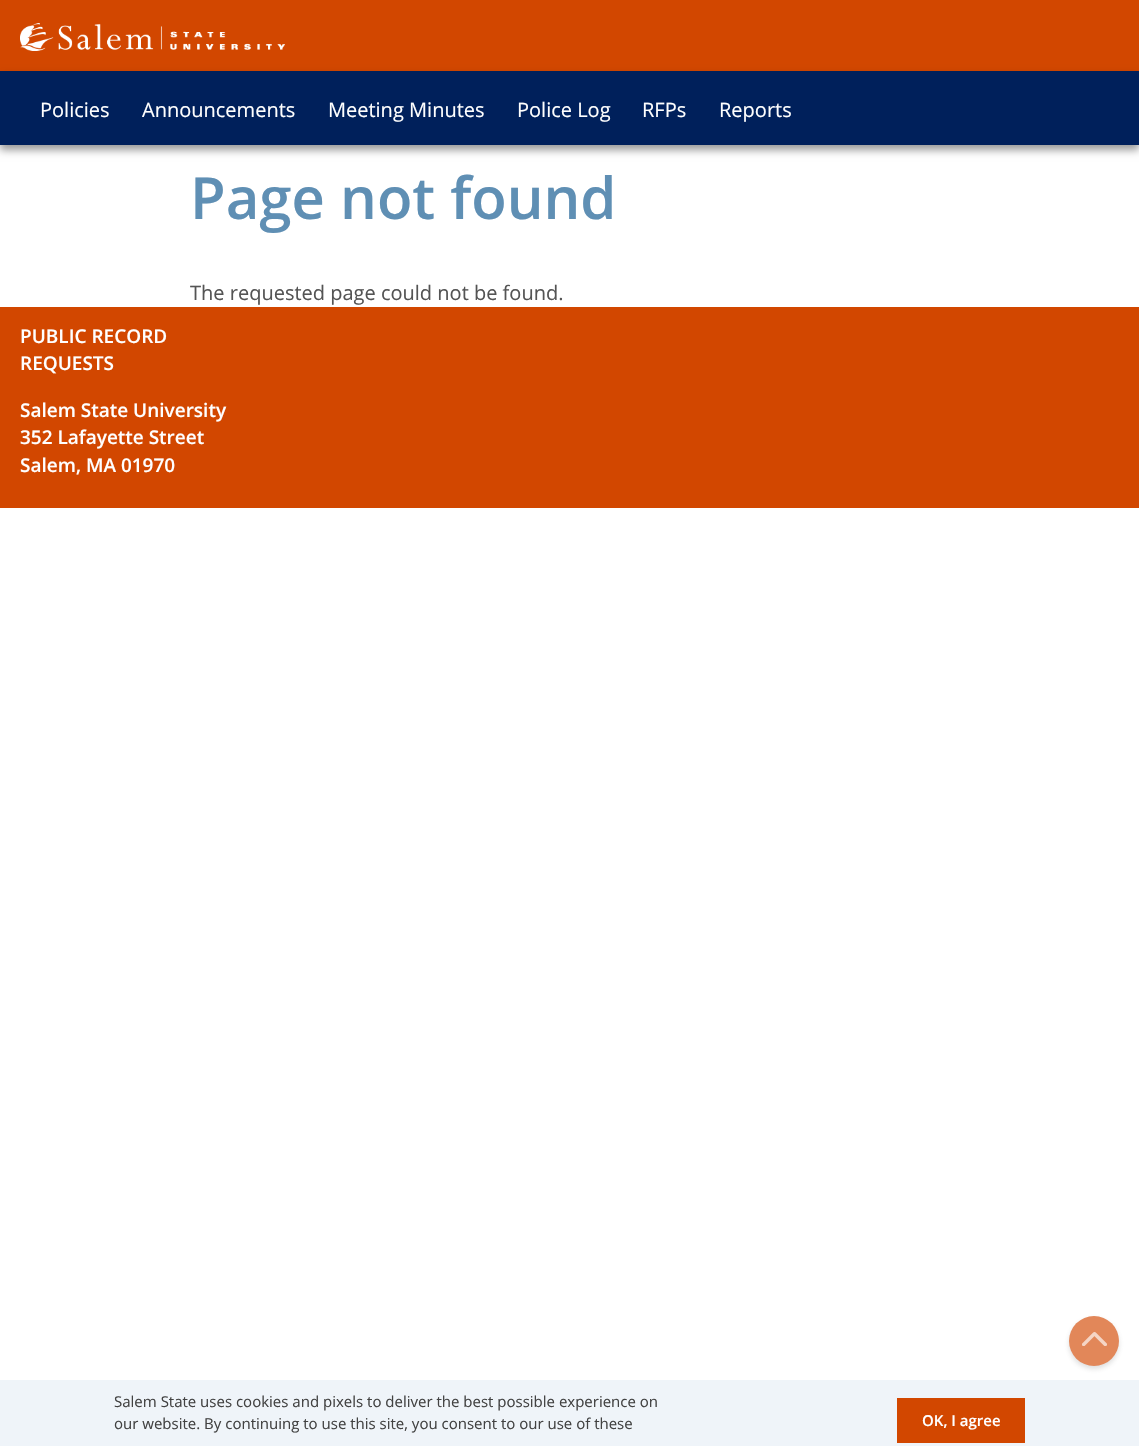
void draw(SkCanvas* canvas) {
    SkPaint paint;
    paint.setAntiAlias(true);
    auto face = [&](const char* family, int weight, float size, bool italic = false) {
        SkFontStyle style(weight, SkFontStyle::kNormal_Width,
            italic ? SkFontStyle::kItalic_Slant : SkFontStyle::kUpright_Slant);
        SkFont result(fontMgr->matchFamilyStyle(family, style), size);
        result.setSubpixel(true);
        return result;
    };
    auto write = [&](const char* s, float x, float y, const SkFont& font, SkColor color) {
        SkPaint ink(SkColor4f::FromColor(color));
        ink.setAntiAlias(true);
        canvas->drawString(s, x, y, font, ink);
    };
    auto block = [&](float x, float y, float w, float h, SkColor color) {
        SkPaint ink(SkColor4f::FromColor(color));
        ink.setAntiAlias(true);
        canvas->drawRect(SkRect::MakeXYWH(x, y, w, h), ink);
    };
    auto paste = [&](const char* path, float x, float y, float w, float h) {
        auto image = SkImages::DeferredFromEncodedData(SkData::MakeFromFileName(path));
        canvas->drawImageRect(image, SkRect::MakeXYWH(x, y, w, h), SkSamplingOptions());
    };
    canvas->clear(SK_ColorWHITE);
    block(0, 0, 1139, 71, SkColorSetRGB(210, 71, 0));
    paste("pic1.png", 20, 23, 265, 28);
    paint.setColor(SkColorSetARGB(102, 0, 0, 0));
    paint.setMaskFilter(SkMaskFilter::MakeBlur(kNormal_SkBlurStyle, 4));
    canvas->drawRect(SkRect::MakeXYWH(0, 76, 1139, 74), paint);
    paint.setMaskFilter(nullptr);
    block(0, 71, 1139, 74, SkColorSetRGB(0, 32, 91));
    auto kFont1 = face("Open Sans", 400, 20);
    write("Policies", 40, 117, kFont1, SK_ColorWHITE);
    write("Announcements", 142, 117, kFont1, SK_ColorWHITE);
    write("Meeting Minutes", 328, 117, kFont1, SK_ColorWHITE);
    write("Police Log", 517, 117, kFont1, SK_ColorWHITE);
    write("RFPs", 642, 117, kFont1, SK_ColorWHITE);
    write("Reports", 719, 117, kFont1, SK_ColorWHITE);
    auto kFont2 = face("Open Sans", 600, 58);
    write("Page not found", 190, 219, kFont2, SkColorSetRGB(95, 143, 180));
    write("The requested page could not be found.", 190, 300, kFont1, SkColorSetRGB(84, 84, 84));
    block(0, 307, 1139, 201, SkColorSetRGB(210, 71, 0));
    auto kFont3 = face("Open Sans", 600, 19);
    write("PUBLIC RECORD", 20, 343, kFont3, SK_ColorWHITE);
    write("REQUESTS", 20, 370, kFont3, SK_ColorWHITE);
    write("Salem State University", 20, 417, kFont3, SK_ColorWHITE);
    write("352 Lafayette Street", 20, 444, kFont3, SK_ColorWHITE);
    write("Salem, MA 01970", 20, 472, kFont3, SK_ColorWHITE);
    paint.setColor(SkColorSetARGB(51, 89, 89, 89));
    paint.setMaskFilter(SkMaskFilter::MakeBlur(kNormal_SkBlurStyle, 2.5f));
    canvas->drawRoundRect(SkRect::MakeXYWH(1069, 1319, 50, 50), 25, 25, paint);
    paint.setMaskFilter(nullptr);
    paint.setColor(SkColorSetRGB(226, 135, 89));
    canvas->drawCircle(1094, 1341, 25, paint);
    paste("pic2.png", 1082, 1332, 25, 14);
    block(0, 1380, 1139, 66, SkColorSetRGB(239, 244, 249));
    auto kFont4 = face("Open Sans", 400, 15);
    write("Salem State uses cookies and pixels to deliver the best possible experience on", 114, 1407, kFont4, SkColorSetRGB(66, 66, 66));
    write("our website. By continuing to use this site, you consent to our use of these", 114, 1429, kFont4, SkColorSetRGB(66, 66, 66));
    block(897, 1398, 128, 45, SkColorSetRGB(210, 71, 0));
    auto kFont5 = face("Open Sans", 600, 15);
    write("OK, I agree", 922, 1426, kFont5, SK_ColorWHITE);
}
